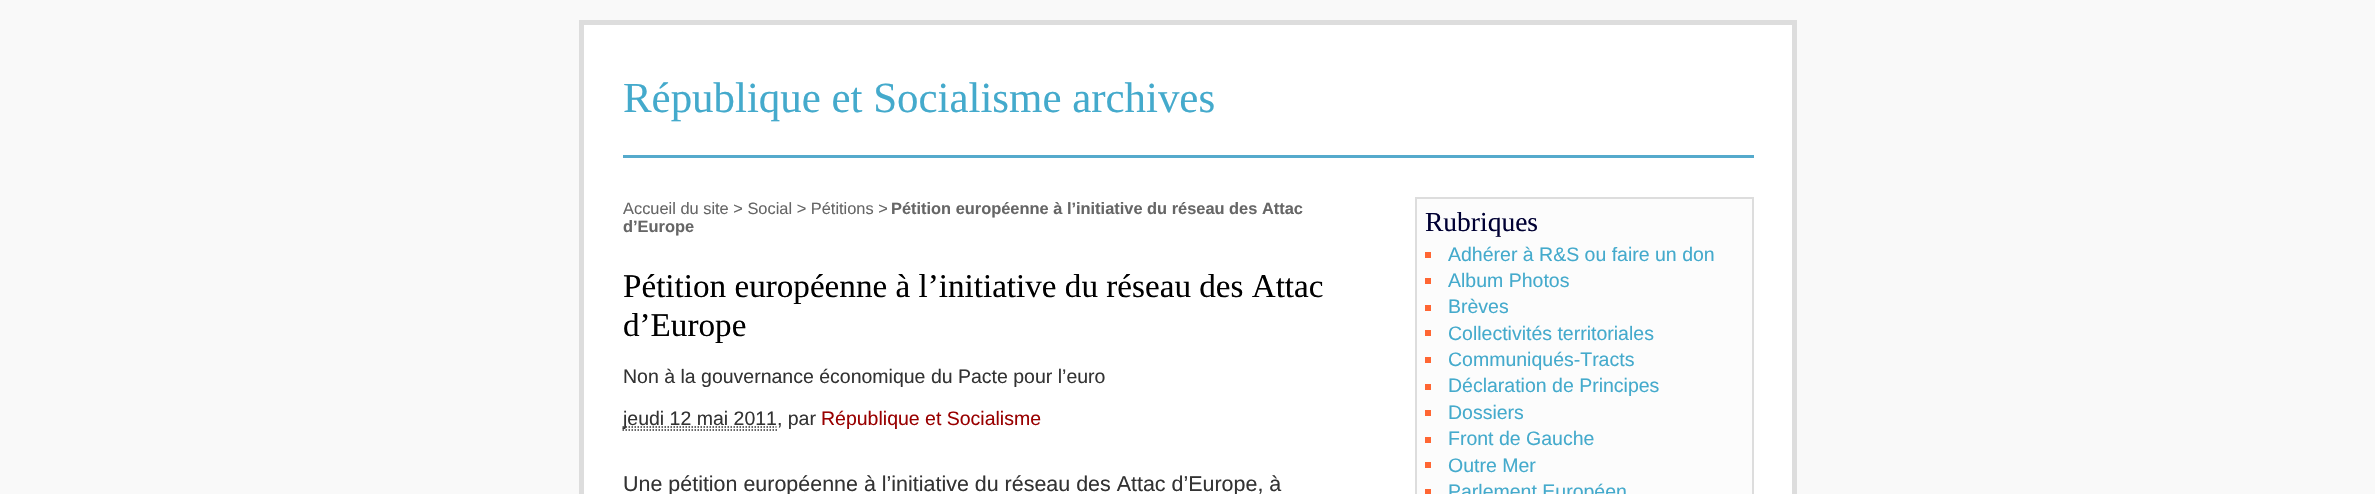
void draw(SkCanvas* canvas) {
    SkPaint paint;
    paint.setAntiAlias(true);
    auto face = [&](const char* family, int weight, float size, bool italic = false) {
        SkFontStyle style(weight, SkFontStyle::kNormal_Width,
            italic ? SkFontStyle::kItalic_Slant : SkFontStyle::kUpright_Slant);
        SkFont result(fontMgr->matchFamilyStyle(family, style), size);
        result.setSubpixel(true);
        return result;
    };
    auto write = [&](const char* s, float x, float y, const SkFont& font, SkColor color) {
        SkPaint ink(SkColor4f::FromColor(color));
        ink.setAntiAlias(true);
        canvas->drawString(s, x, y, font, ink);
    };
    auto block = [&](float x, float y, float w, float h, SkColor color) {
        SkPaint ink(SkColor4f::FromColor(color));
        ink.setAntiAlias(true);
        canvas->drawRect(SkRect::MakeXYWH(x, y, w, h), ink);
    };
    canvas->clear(SkColorSetRGB(249, 249, 249));
    paint.setColor(SK_ColorWHITE);
    canvas->drawRect(SkRect::MakeXYWH(581.5f, 22.5f, 1213, 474), paint);
    paint.setStyle(SkPaint::kStroke_Style);
    paint.setStrokeWidth(5);
    paint.setColor(SkColorSetRGB(221, 221, 221));
    canvas->drawRect(SkRect::MakeXYWH(581.5f, 22.5f, 1213, 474), paint);
    block(623, 155, 1131, 3, SkColorSetRGB(85, 170, 204));
    auto kFont1 = face("Liberation Serif", 400, 42.9f);
    write("République et Socialisme archives", 623, 112, kFont1, SkColorSetRGB(68, 170, 204));
    auto kFont2 = face("Liberation Sans", 400, 16.4f);
    write("Accueil du site > Social > Pétitions >", 623, 214, kFont2, SkColorSetRGB(102, 102, 102));
    auto kFont3 = face("Liberation Sans", 700, 16.4f);
    write("Pétition européenne à l’initiative du réseau des Attac", 891, 214, kFont3, SkColorSetRGB(102, 102, 102));
    write("d’Europe", 623, 232, kFont3, SkColorSetRGB(102, 102, 102));
    auto kFont4 = face("Liberation Serif", 400, 33.15f);
    write("Pétition européenne à l’initiative du réseau des Attac", 623, 297, kFont4, SK_ColorBLACK);
    write("d’Europe", 623, 336, kFont4, SK_ColorBLACK);
    auto kFont5 = face("Liberation Sans", 400, 19.5f);
    write("Non à la gouvernance économique du Pacte pour l’euro", 623, 383, kFont5, SkColorSetRGB(51, 51, 51));
    paint.setStrokeWidth(1.5f);
    paint.setColor(SkColorSetRGB(51, 51, 51));
    paint.setPathEffect(SkDashPathEffect::Make({{1.5f, 1.5f}}, 0));
    canvas->drawPath(SkPathBuilder().moveTo(622.5f, 430).lineTo(777, 430).detach(), paint);
    paint.setPathEffect(nullptr);
    paint.setPathEffect(SkDashPathEffect::Make({{1.5f, 1.5f}}, 0));
    canvas->drawPath(SkPathBuilder().moveTo(622.5f, 427).lineTo(776.5f, 427).detach(), paint);
    paint.setPathEffect(nullptr);
    write("jeudi 12 mai 2011, par", 623, 425, kFont5, SkColorSetRGB(51, 51, 51));
    write("République et Socialisme", 821, 425, kFont5, SkColorSetRGB(153, 0, 0));
    auto kFont6 = face("Liberation Sans", 400, 21.45f);
    write("Une pétition européenne à l’initiative du réseau des Attac d’Europe, à", 623, 491, kFont6, SkColorSetRGB(51, 51, 51));
    paint.setStyle(SkPaint::kFill_Style);
    paint.setColor(SkColorSetRGB(252, 252, 252));
    canvas->drawRect(SkRect::MakeXYWH(1416, 198, 337, 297), paint);
    paint.setStyle(SkPaint::kStroke_Style);
    paint.setStrokeWidth(2);
    paint.setColor(SkColorSetRGB(221, 221, 221));
    canvas->drawRect(SkRect::MakeXYWH(1416, 198, 337, 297), paint);
    auto kFont7 = face("Liberation Serif", 400, 27.5f);
    write("Rubriques", 1425, 231, kFont7, SkColorSetRGB(0, 0, 51));
    block(1425, 252, 6, 6, SkColorSetRGB(255, 102, 51));
    write("Adhérer à R&S ou faire un don", 1448, 261, kFont5, SkColorSetRGB(68, 170, 204));
    block(1425, 278, 6, 6, SkColorSetRGB(255, 102, 51));
    write("Album Photos", 1448, 287, kFont5, SkColorSetRGB(68, 170, 204));
    block(1425, 305, 6, 6, SkColorSetRGB(255, 102, 51));
    write("Brèves", 1448, 313, kFont5, SkColorSetRGB(68, 170, 204));
    block(1425, 330, 6, 6, SkColorSetRGB(255, 102, 51));
    write("Collectivités territoriales", 1448, 340, kFont5, SkColorSetRGB(68, 170, 204));
    block(1425, 357, 6, 6, SkColorSetRGB(255, 102, 51));
    write("Communiqués-Tracts", 1448, 366, kFont5, SkColorSetRGB(68, 170, 204));
    block(1425, 384, 6, 6, SkColorSetRGB(255, 102, 51));
    write("Déclaration de Principes", 1448, 392, kFont5, SkColorSetRGB(68, 170, 204));
    block(1425, 410, 6, 6, SkColorSetRGB(255, 102, 51));
    write("Dossiers", 1448, 419, kFont5, SkColorSetRGB(68, 170, 204));
    block(1425, 437, 6, 6, SkColorSetRGB(255, 102, 51));
    write("Front de Gauche", 1448, 445, kFont5, SkColorSetRGB(68, 170, 204));
    block(1425, 462, 6, 6, SkColorSetRGB(255, 102, 51));
    write("Outre Mer", 1448, 472, kFont5, SkColorSetRGB(68, 170, 204));
    block(1425, 489, 6, 5, SkColorSetRGB(255, 102, 51));
    write("Parlement Européen", 1448, 498, kFont5, SkColorSetRGB(68, 170, 204));
}
